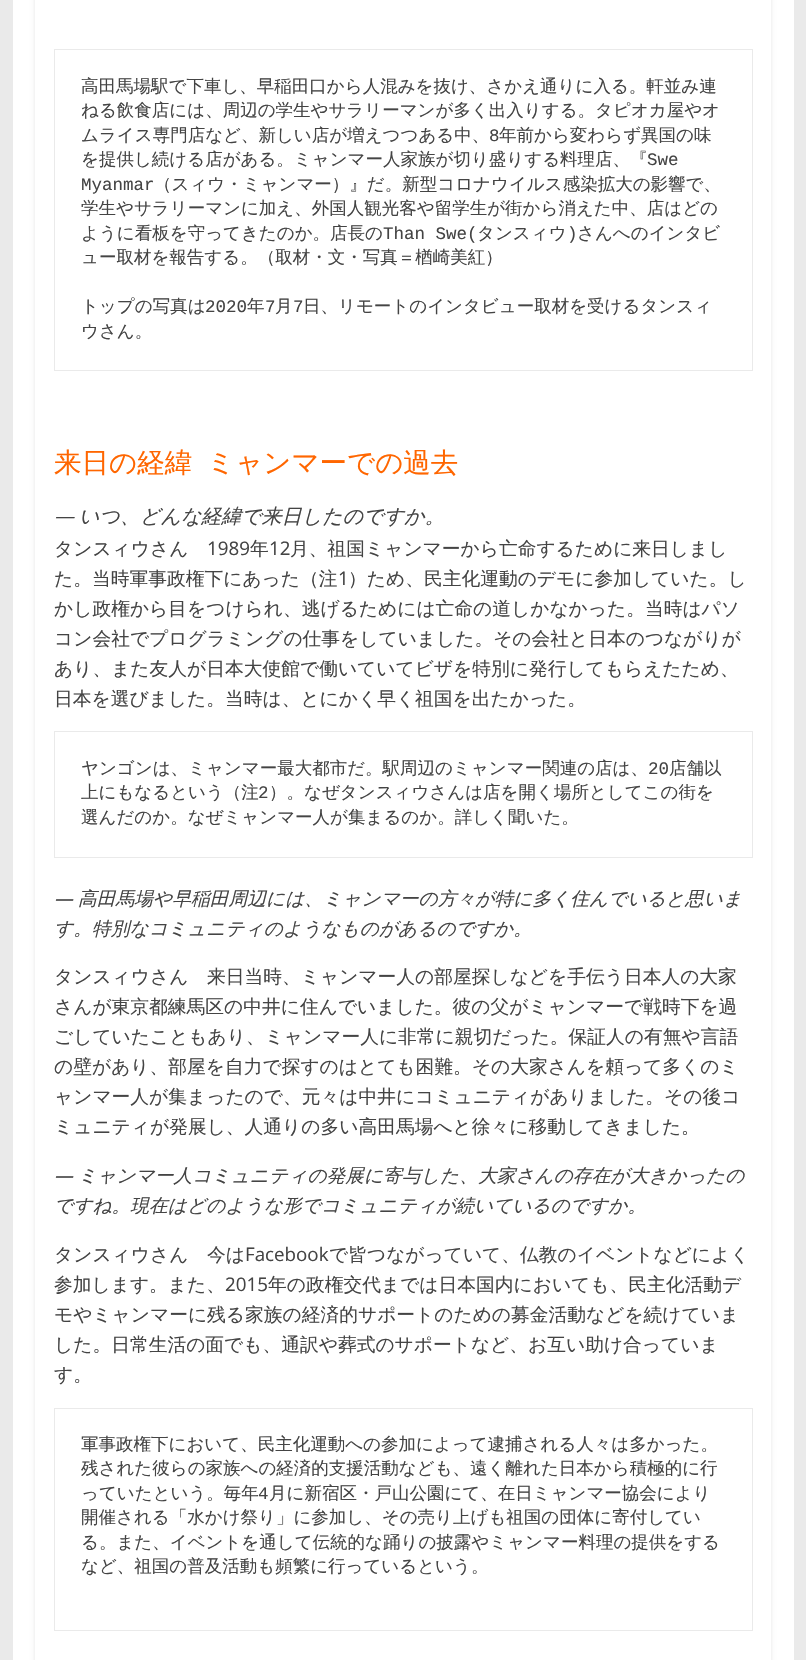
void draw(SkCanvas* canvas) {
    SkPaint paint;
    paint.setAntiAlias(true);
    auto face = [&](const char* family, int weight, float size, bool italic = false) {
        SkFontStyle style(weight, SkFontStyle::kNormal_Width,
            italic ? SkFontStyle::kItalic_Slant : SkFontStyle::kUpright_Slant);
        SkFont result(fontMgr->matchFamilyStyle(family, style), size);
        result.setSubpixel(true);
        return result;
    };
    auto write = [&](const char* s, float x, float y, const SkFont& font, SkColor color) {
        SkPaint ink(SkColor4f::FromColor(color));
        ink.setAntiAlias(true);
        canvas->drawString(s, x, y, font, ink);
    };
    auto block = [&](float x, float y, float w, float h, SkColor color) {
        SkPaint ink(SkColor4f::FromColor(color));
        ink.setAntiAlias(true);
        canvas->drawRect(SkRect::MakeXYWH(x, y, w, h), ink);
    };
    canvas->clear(SkColorSetRGB(234, 234, 234));
    block(13, 0, 781, 1660, SK_ColorWHITE);
    canvas->save();
    canvas->clipPath(SkPathBuilder(SkPathFillType::kEvenOdd).moveTo(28, 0).lineTo(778, 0).lineTo(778, 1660).lineTo(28, 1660).close().moveTo(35, -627).lineTo(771, -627).lineTo(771, 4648).lineTo(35, 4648).close().detach(), true);
    paint.setColor(SkColorSetARGB(26, 0, 0, 0));
    paint.setMaskFilter(SkMaskFilter::MakeBlur(kNormal_SkBlurStyle, 2));
    canvas->drawRect(SkRect::MakeXYWH(35, -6, 736, 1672), paint);
    paint.setMaskFilter(nullptr);
    canvas->restore();
    paint.setStyle(SkPaint::kStroke_Style);
    paint.setStrokeWidth(1);
    paint.setColor(SkColorSetRGB(234, 234, 234));
    canvas->drawRect(SkRect::MakeXYWH(54.5f, 49.5f, 698, 321), paint);
    auto kFont1 = face("WenQuanYi Zen Hei", 500, 17.5f);
    write("高田馬場駅で下車し、早稲田口から人混みを抜け、さかえ通りに入る。軒並み連", 81, 92, kFont1, SkColorSetRGB(68, 68, 68));
    write("ねる飲食店には、周辺の学生やサラリーマンが多く出入りする。タピオカ屋やオ", 81, 116, kFont1, SkColorSetRGB(68, 68, 68));
    write("ムライス専門店など、新しい店が増えつつある中、", 81, 141, kFont1, SkColorSetRGB(68, 68, 68));
    auto kFont2 = face("Liberation Mono", 400, 17.5f);
    write("8", 489, 141, kFont2, SkColorSetRGB(68, 68, 68));
    write("年前から変わらず異国の味", 499, 141, kFont1, SkColorSetRGB(68, 68, 68));
    write("を提供し続ける店がある。ミャンマー人家族が切り盛りする料理店、『", 81, 165, kFont1, SkColorSetRGB(68, 68, 68));
    write("Swe", 647, 165, kFont2, SkColorSetRGB(68, 68, 68));
    write("Myanmar", 81, 190, kFont2, SkColorSetRGB(68, 68, 68));
    write("（スィウ・ミャンマー）』だ。新型コロナウイルス感染拡大の影響で、", 154, 190, kFont1, SkColorSetRGB(68, 68, 68));
    write("学生やサラリーマンに加え、外国人観光客や留学生が街から消えた中、店はどの", 81, 214, kFont1, SkColorSetRGB(68, 68, 68));
    write("ように看板を守ってきたのか。店長の", 81, 239, kFont1, SkColorSetRGB(68, 68, 68));
    write("Than Swe(", 383, 239, kFont2, SkColorSetRGB(68, 68, 68));
    write("タンスィウ", 477, 239, kFont1, SkColorSetRGB(68, 68, 68));
    write(")", 567, 239, kFont2, SkColorSetRGB(68, 68, 68));
    write("さんへのインタビ", 577, 239, kFont1, SkColorSetRGB(68, 68, 68));
    write("ュー取材を報告する。（取材・文・写真＝楢崎美紅）", 81, 263, kFont1, SkColorSetRGB(68, 68, 68));
    write("トップの写真は", 81, 312, kFont1, SkColorSetRGB(68, 68, 68));
    write("2020", 205, 312, kFont2, SkColorSetRGB(68, 68, 68));
    write("年", 247, 312, kFont1, SkColorSetRGB(68, 68, 68));
    write("7", 265, 312, kFont2, SkColorSetRGB(68, 68, 68));
    write("月", 275, 312, kFont1, SkColorSetRGB(68, 68, 68));
    write("7", 293, 312, kFont2, SkColorSetRGB(68, 68, 68));
    write("日、リモートのインタビュー取材を受けるタンスィ", 303, 312, kFont1, SkColorSetRGB(68, 68, 68));
    write("ウさん。", 81, 337, kFont1, SkColorSetRGB(68, 68, 68));
    auto kFont3 = face("WenQuanYi Zen Hei", 500, 27.5f);
    write("来日の経緯", 54, 472, kFont3, SkColorSetRGB(255, 102, 0));
    write("ミャンマーでの過去", 207, 472, kFont3, SkColorSetRGB(255, 102, 0));
    auto kFont4 = face("Open Sans", 400, 20, true);
    write("—", 54, 523, kFont4, SkColorSetRGB(68, 68, 68));
    auto kFont5 = face("WenQuanYi Zen Hei", 500, 20, true);
    write("いつ、どんな経緯で来日したのですか。", 79, 523, kFont5, SkColorSetRGB(68, 68, 68));
    auto kFont6 = face("WenQuanYi Zen Hei", 500, 18.75f);
    write("タンスィウさん", 54, 555, kFont6, SkColorSetRGB(68, 68, 68));
    auto kFont7 = face("Open Sans", 400, 18.75f);
    write("1989", 207, 555, kFont7, SkColorSetRGB(68, 68, 68));
    write("年", 250, 555, kFont6, SkColorSetRGB(68, 68, 68));
    write("12", 269, 555, kFont7, SkColorSetRGB(68, 68, 68));
    write("月、祖国ミャンマーから亡命するために来日しまし", 290, 555, kFont6, SkColorSetRGB(68, 68, 68));
    write("た。当時軍事政権下にあった（注", 54, 585, kFont6, SkColorSetRGB(68, 68, 68));
    write("1", 338, 585, kFont7, SkColorSetRGB(68, 68, 68));
    write("）ため、民主化運動のデモに参加していた。し", 348, 585, kFont6, SkColorSetRGB(68, 68, 68));
    write("かし政権から目をつけられ、逃げるためには亡命の道しかなかった。当時はパソ", 54, 615, kFont6, SkColorSetRGB(68, 68, 68));
    write("コン会社でプログラミングの仕事をしていました。その会社と日本のつながりが", 54, 645, kFont6, SkColorSetRGB(68, 68, 68));
    write("あり、また友人が日本大使館で働いていてビザを特別に発行してもらえたため、", 54, 675, kFont6, SkColorSetRGB(68, 68, 68));
    write("日本を選びました。当時は、とにかく早く祖国を出たかった。", 54, 705, kFont6, SkColorSetRGB(68, 68, 68));
    canvas->drawRect(SkRect::MakeXYWH(54.5f, 731.5f, 698, 126), paint);
    write("ヤンゴンは、ミャンマー最大都市だ。駅周辺のミャンマー関連の店は、", 81, 774, kFont1, SkColorSetRGB(68, 68, 68));
    write("20", 648, 774, kFont2, SkColorSetRGB(68, 68, 68));
    write("店舗以", 669, 774, kFont1, SkColorSetRGB(68, 68, 68));
    write("上にもなるという（注", 81, 798, kFont1, SkColorSetRGB(68, 68, 68));
    write("2", 258, 798, kFont2, SkColorSetRGB(68, 68, 68));
    write("）。なぜタンスィウさんは店を開く場所としてこの街を", 269, 798, kFont1, SkColorSetRGB(68, 68, 68));
    write("選んだのか。なぜミャンマー人が集まるのか。詳しく聞いた。", 81, 823, kFont1, SkColorSetRGB(68, 68, 68));
    auto kFont8 = face("Open Sans", 400, 18.75f, true);
    write("—", 54, 905, kFont8, SkColorSetRGB(68, 68, 68));
    auto kFont9 = face("WenQuanYi Zen Hei", 500, 18.75f, true);
    write("高田馬場や早稲田周辺には、ミャンマーの方々が特に多く住んでいると思いま", 78, 905, kFont9, SkColorSetRGB(68, 68, 68));
    write("す。特別なコミュニティのようなものがあるのですか。", 54, 935, kFont9, SkColorSetRGB(68, 68, 68));
    write("タンスィウさん", 54, 983, kFont6, SkColorSetRGB(68, 68, 68));
    write("来日当時、ミャンマー人の部屋探しなどを手伝う日本人の大家", 207, 983, kFont6, SkColorSetRGB(68, 68, 68));
    write("さんが東京都練馬区の中井に住んでいました。彼の父がミャンマーで戦時下を過", 54, 1013, kFont6, SkColorSetRGB(68, 68, 68));
    write("ごしていたこともあり、ミャンマー人に非常に親切だった。保証人の有無や言語", 54, 1043, kFont6, SkColorSetRGB(68, 68, 68));
    write("の壁があり、部屋を自力で探すのはとても困難。その大家さんを頼って多くのミ", 54, 1073, kFont6, SkColorSetRGB(68, 68, 68));
    write("ャンマー人が集まったので、元々は中井にコミュニティがありました。その後コ", 54, 1103, kFont6, SkColorSetRGB(68, 68, 68));
    write("ミュニティが発展し、人通りの多い高田馬場へと徐々に移動してきました。", 54, 1133, kFont6, SkColorSetRGB(68, 68, 68));
    write("—", 54, 1182, kFont8, SkColorSetRGB(68, 68, 68));
    write("ミャンマー人コミュニティの発展に寄与した、大家さんの存在が大きかったの", 78, 1182, kFont9, SkColorSetRGB(68, 68, 68));
    write("ですね。現在はどのような形でコミュニティが続いているのですか。", 54, 1212, kFont9, SkColorSetRGB(68, 68, 68));
    write("タンスィウさん", 54, 1261, kFont6, SkColorSetRGB(68, 68, 68));
    write("今は", 207, 1261, kFont6, SkColorSetRGB(68, 68, 68));
    write("Facebook", 245, 1261, kFont7, SkColorSetRGB(68, 68, 68));
    write("で皆つながっていて、仏教のイベントなどによく", 329, 1261, kFont6, SkColorSetRGB(68, 68, 68));
    write("参加します。また、", 54, 1291, kFont6, SkColorSetRGB(68, 68, 68));
    write("2015", 225, 1291, kFont7, SkColorSetRGB(68, 68, 68));
    write("年の政権交代までは日本国内においても、民主化活動デ", 268, 1291, kFont6, SkColorSetRGB(68, 68, 68));
    write("モやミャンマーに残る家族の経済的サポートのための募金活動などを続けていま", 54, 1321, kFont6, SkColorSetRGB(68, 68, 68));
    write("した。日常生活の面でも、通訳や葬式のサポートなど、お互い助け合っていま", 54, 1351, kFont6, SkColorSetRGB(68, 68, 68));
    write("す。", 54, 1381, kFont6, SkColorSetRGB(68, 68, 68));
    canvas->drawRect(SkRect::MakeXYWH(54.5f, 1408.5f, 698, 222), paint);
    write("軍事政権下において、民主化運動への参加によって逮捕される人々は多かった。", 81, 1450, kFont1, SkColorSetRGB(68, 68, 68));
    write("残された彼らの家族への経済的支援活動なども、遠く離れた日本から積極的に行", 81, 1474, kFont1, SkColorSetRGB(68, 68, 68));
    write("っていたという。毎年", 81, 1499, kFont1, SkColorSetRGB(68, 68, 68));
    write("4", 258, 1499, kFont2, SkColorSetRGB(68, 68, 68));
    write("月に新宿区・戸山公園にて、在日ミャンマー協会により", 269, 1499, kFont1, SkColorSetRGB(68, 68, 68));
    write("開催される「水かけ祭り」に参加し、その売り上げも祖国の団体に寄付してい", 81, 1523, kFont1, SkColorSetRGB(68, 68, 68));
    write("る。また、イベントを通して伝統的な踊りの披露やミャンマー料理の提供をする", 81, 1548, kFont1, SkColorSetRGB(68, 68, 68));
    write("など、祖国の普及活動も頻繁に行っているという。", 81, 1572, kFont1, SkColorSetRGB(68, 68, 68));
}
